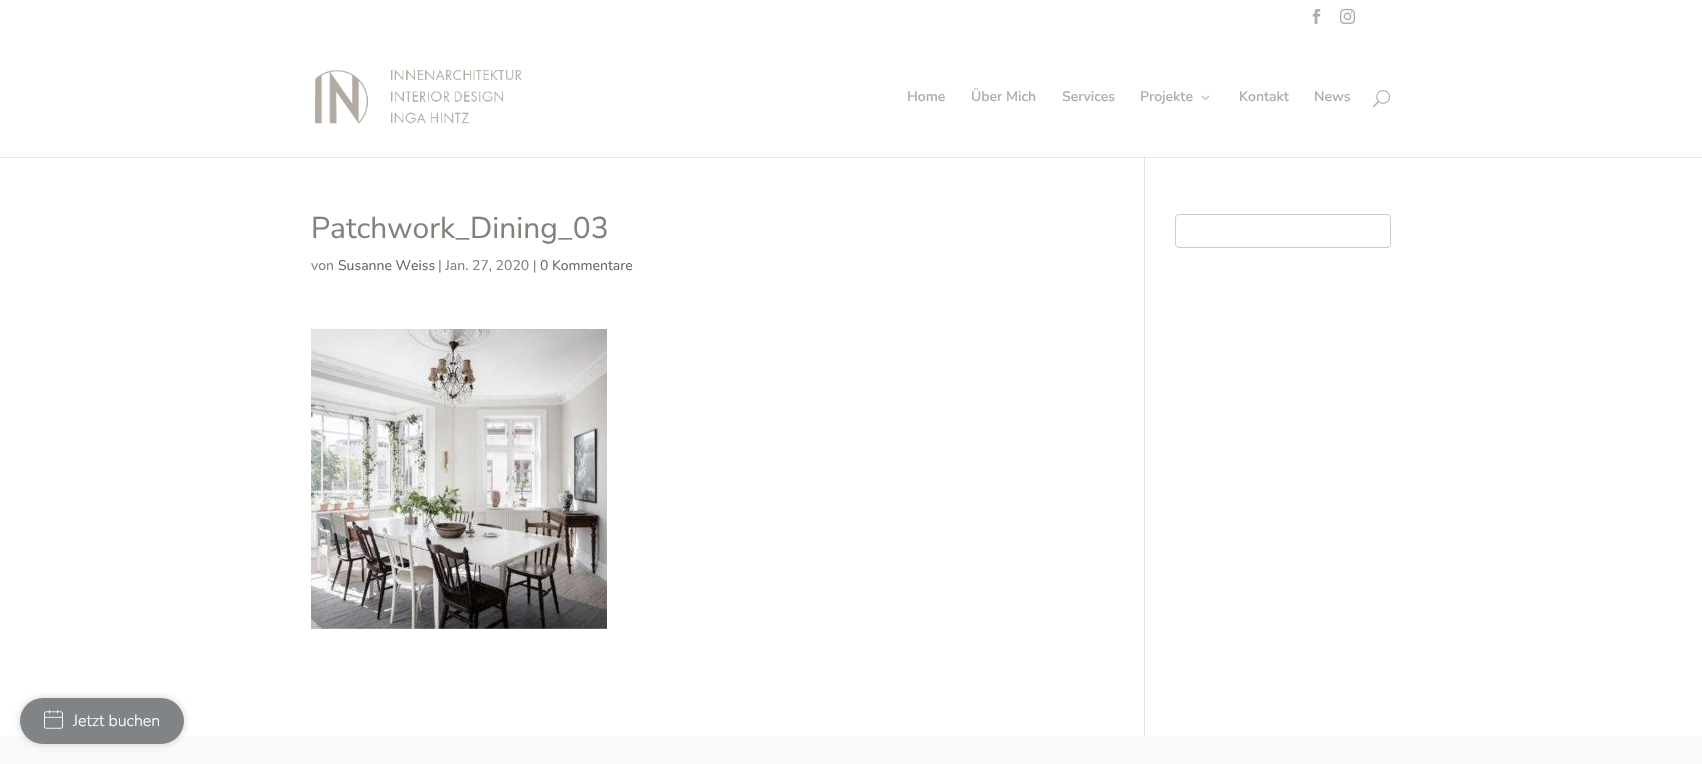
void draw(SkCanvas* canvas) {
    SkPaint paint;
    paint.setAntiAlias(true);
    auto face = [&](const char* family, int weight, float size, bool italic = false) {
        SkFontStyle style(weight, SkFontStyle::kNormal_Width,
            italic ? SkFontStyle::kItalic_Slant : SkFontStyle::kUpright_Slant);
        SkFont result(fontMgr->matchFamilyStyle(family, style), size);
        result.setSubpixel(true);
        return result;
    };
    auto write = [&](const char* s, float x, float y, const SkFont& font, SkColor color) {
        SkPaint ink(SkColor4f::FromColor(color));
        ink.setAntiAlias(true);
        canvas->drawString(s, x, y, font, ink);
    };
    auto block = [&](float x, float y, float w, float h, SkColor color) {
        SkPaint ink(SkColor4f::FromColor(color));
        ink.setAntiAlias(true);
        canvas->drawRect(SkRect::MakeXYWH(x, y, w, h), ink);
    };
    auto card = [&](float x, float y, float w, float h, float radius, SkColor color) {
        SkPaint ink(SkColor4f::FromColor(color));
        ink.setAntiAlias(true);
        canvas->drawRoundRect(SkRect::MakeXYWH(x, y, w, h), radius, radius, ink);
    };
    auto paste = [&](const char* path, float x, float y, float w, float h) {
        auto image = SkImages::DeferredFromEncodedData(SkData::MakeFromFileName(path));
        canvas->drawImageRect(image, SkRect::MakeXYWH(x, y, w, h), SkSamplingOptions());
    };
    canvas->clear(SK_ColorWHITE);
    block(0, 157, 1702, 1, SkColorSetRGB(230, 230, 230));
    paste("pic1.png", 1312, 8, 9, 16);
    paste("pic2.png", 1340, 8, 15, 16);
    block(1144, 156, 1, 580, SkColorSetRGB(226, 226, 226));
    block(1144, 156, 1, 1, SK_ColorWHITE);
    paste("pic3.png", 315, 69, 207, 55);
    auto kFont1 = face("Nunito Sans", 600, 14);
    write("Home", 907, 101, kFont1, SkColorSetRGB(178, 172, 164));
    write("Über Mich", 971, 101, kFont1, SkColorSetRGB(178, 172, 164));
    write("Services", 1062, 101, kFont1, SkColorSetRGB(178, 172, 164));
    write("Projekte", 1140, 101, kFont1, SkColorSetRGB(178, 172, 164));
    paste("pic4.png", 1201, 95, 9, 5);
    write("Kontakt", 1239, 101, kFont1, SkColorSetRGB(178, 172, 164));
    write("News", 1314, 101, kFont1, SkColorSetRGB(178, 172, 164));
    paste("pic5.png", 1373, 90, 17, 17);
    auto kFont2 = face("Nunito Sans", 400, 30);
    write("Patchwork_Dining_03", 311, 238, kFont2, SkColorSetRGB(132, 128, 123));
    auto kFont3 = face("Nunito Sans", 400, 14);
    write("von", 311, 270, kFont3, SkColorSetRGB(132, 128, 123));
    write("Susanne Weiss", 338, 270, kFont3, SkColorSetRGB(102, 102, 102));
    write("| Jan. 27, 2020 |", 438, 270, kFont3, SkColorSetRGB(132, 128, 123));
    write("0 Kommentare", 540, 270, kFont3, SkColorSetRGB(102, 102, 102));
    paste("pic6.png", 311, 329, 296, 300);
    paint.setStyle(SkPaint::kStroke_Style);
    paint.setStrokeWidth(1);
    paint.setColor(SkColorSetRGB(204, 204, 204));
    canvas->drawRoundRect(SkRect::MakeXYWH(1175.5f, 214.5f, 215, 33), 3.5f, 3.5f, paint);
    block(1144, 157, 1, 1, SkColorSetRGB(203, 203, 203));
    block(0, 736, 1702, 28, SkColorSetRGB(249, 249, 249));
    paint.setStyle(SkPaint::kFill_Style);
    paint.setColor(SkColorSetARGB(26, 0, 0, 0));
    paint.setMaskFilter(SkMaskFilter::MakeBlur(kNormal_SkBlurStyle, 2.5f));
    canvas->drawRoundRect(SkRect::MakeXYWH(18, 696, 168, 50), 25, 25, paint);
    paint.setMaskFilter(nullptr);
    card(20, 698, 164, 46, 23, SkColorSetRGB(128, 132, 135));
    paste("pic7.png", 44, 710, 19, 19);
    auto kFont4 = face("Nunito", 300, 16);
    write("Jetzt buchen", 73, 726, kFont4, SK_ColorWHITE);
}
